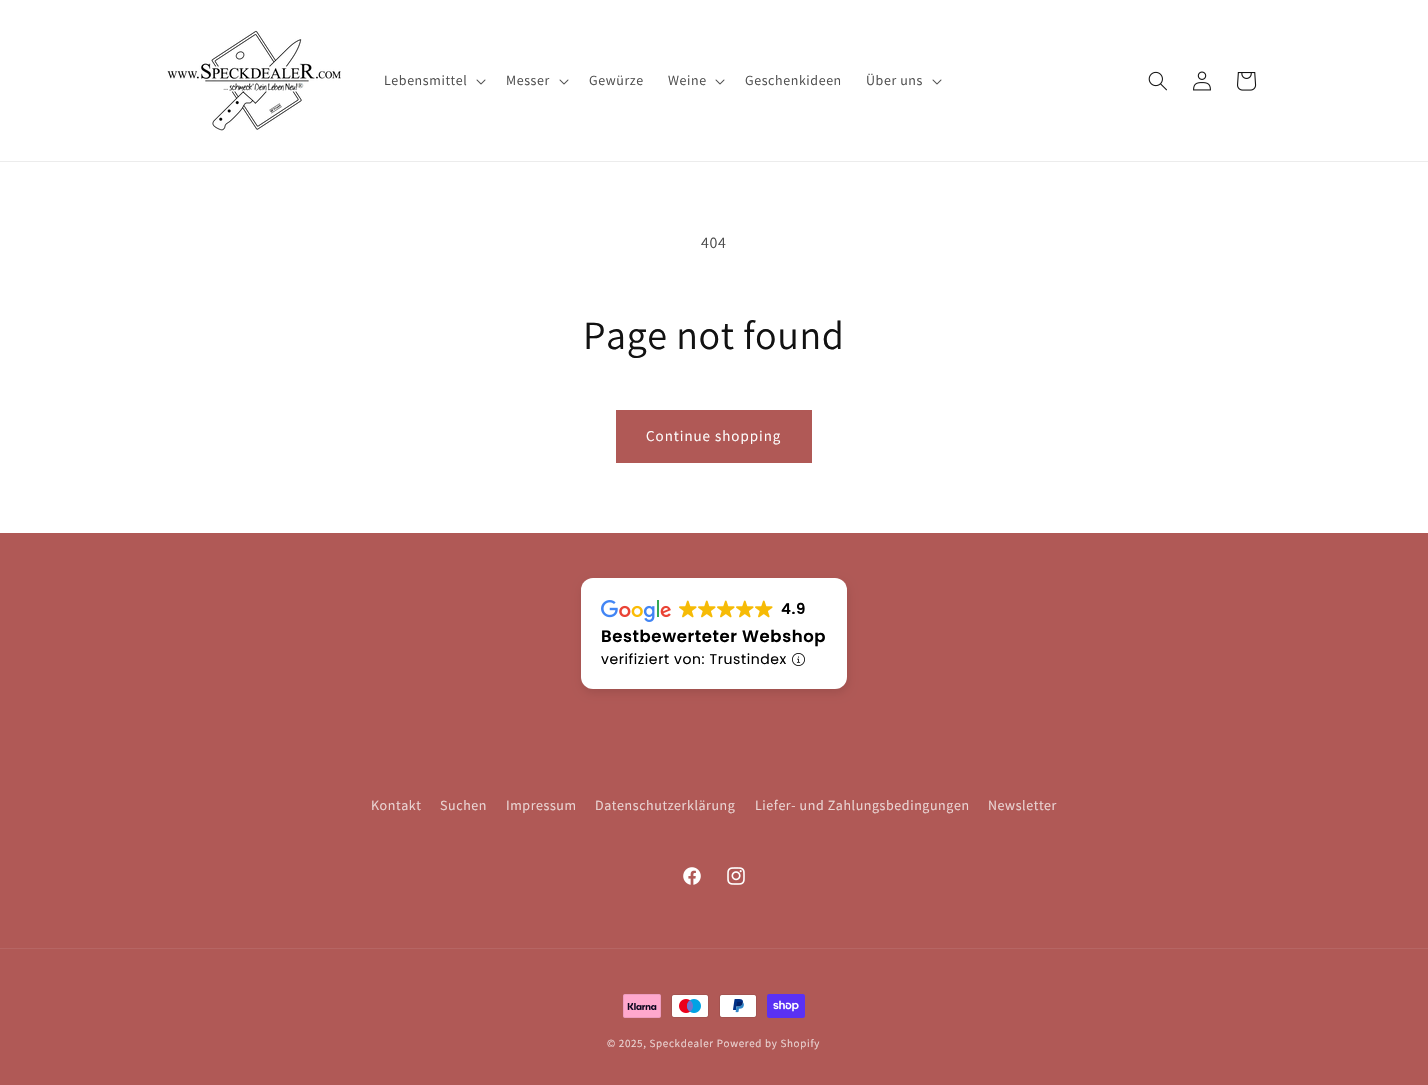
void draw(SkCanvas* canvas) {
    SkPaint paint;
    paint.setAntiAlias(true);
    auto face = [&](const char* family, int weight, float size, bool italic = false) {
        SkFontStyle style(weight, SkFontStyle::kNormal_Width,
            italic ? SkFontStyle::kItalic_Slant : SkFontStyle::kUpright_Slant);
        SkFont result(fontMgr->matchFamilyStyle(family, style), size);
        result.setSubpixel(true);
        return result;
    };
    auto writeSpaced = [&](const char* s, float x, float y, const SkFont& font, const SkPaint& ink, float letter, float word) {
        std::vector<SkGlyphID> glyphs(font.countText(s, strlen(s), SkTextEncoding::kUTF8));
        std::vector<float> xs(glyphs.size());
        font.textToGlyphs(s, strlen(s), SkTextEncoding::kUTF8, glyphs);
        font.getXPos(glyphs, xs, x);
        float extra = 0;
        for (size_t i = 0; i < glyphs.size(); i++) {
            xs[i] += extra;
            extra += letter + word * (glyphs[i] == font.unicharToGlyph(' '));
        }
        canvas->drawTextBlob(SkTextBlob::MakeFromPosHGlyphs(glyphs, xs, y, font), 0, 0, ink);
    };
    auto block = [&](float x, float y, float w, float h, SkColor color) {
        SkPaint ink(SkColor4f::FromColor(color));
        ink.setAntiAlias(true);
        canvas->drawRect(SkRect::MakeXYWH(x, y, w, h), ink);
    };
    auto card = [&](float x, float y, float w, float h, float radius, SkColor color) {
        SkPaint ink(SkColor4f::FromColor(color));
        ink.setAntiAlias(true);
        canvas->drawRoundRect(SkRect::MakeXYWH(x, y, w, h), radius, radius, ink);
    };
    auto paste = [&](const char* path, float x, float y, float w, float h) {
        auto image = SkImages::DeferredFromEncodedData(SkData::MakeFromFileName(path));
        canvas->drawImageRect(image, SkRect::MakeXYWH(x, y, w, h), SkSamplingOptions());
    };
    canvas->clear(SK_ColorWHITE);
    block(0, 161, 1428, 1, SkColorSetRGB(236, 236, 236));
    paste("pic1.png", 167, 30, 174, 101);
    auto kFont1 = face("Assistant", 400, 14);
    paint.setColor(SkColorSetRGB(77, 77, 77));
    writeSpaced("Lebensmittel", 384, 85, kFont1, paint, 0.6f, 0);
    paste("pic2.png", 476, 79, 10, 6);
    writeSpaced("Messer", 506, 85, kFont1, paint, 0.6f, 0);
    paste("pic2.png", 559, 79, 10, 6);
    writeSpaced("Gewürze", 589, 85, kFont1, paint, 0.6f, 0);
    writeSpaced("Weine", 668, 85, kFont1, paint, 0.6f, 0);
    paste("pic2.png", 715, 79, 10, 6);
    writeSpaced("Geschenkideen", 745, 85, kFont1, paint, 0.6f, 0);
    writeSpaced("Über uns", 866, 85, kFont1, paint, 0.6f, 0);
    paste("pic2.png", 932, 79, 10, 6);
    paste("pic3.png", 1148, 71, 19, 20);
    paste("pic4.png", 1193, 71, 18, 20);
    paste("pic5.png", 1237, 72, 20, 19);
    auto kFont2 = face("Assistant", 400, 16);
    writeSpaced("404", 701, 248, kFont2, paint, 0.6f, 0);
    auto kFont3 = face("Assistant", 400, 40);
    paint.setColor(SkColorSetRGB(18, 18, 18));
    writeSpaced("Page not found", 583, 349, kFont3, paint, 0.6f, 0);
    block(616, 410, 196, 53, SkColorSetRGB(176, 89, 86));
    auto kFont4 = face("Assistant", 400, 15);
    paint.setColor(SK_ColorWHITE);
    writeSpaced("Continue shopping", 646, 441, kFont4, paint, 1, 0);
    block(0, 533, 1428, 552, SkColorSetRGB(176, 89, 86));
    paint.setColor(SkColorSetARGB(26, 0, 0, 0));
    paint.setMaskFilter(SkMaskFilter::MakeBlur(kNormal_SkBlurStyle, 5));
    canvas->drawRoundRect(SkRect::MakeXYWH(582, 582, 266, 111), 12, 12, paint);
    paint.setMaskFilter(nullptr);
    card(581, 578, 266, 111, 12, SK_ColorWHITE);
    paste("pic6.png", 601, 600, 70, 22);
    paste("pic7.png", 679, 600, 18, 18);
    paste("pic7.png", 698, 600, 18, 18);
    paste("pic7.png", 717, 600, 18, 18);
    paste("pic7.png", 736, 600, 18, 18);
    paste("pic7.png", 755, 600, 18, 18);
    auto kFont5 = face("Poppins", 600, 15);
    paint.setColor(SK_ColorBLACK);
    writeSpaced("4.9", 781, 614, kFont5, paint, 0.6f, 0);
    auto kFont6 = face("Poppins", 600, 16.5f);
    writeSpaced("Bestbewerteter Webshop", 601, 642, kFont6, paint, 0.6f, 0);
    auto kFont7 = face("Poppins", 400, 14);
    writeSpaced("verifiziert von: Trustindex", 601, 664, kFont7, paint, 0.6f, 0);
    paste("pic8.png", 792, 653, 13, 13);
    paint.setColor(SkColorSetRGB(235, 214, 213));
    writeSpaced("Kontakt", 371, 810, kFont1, paint, 0.6f, 0);
    writeSpaced("Suchen", 440, 810, kFont1, paint, 0.6f, 0);
    writeSpaced("Impressum", 506, 810, kFont1, paint, 0.6f, 0);
    writeSpaced("Datenschutzerklärung", 595, 810, kFont1, paint, 0.6f, 0);
    writeSpaced("Liefer- und Zahlungsbedingungen", 755, 810, kFont1, paint, 0.6f, 0);
    writeSpaced("Newsletter", 988, 810, kFont1, paint, 0.6f, 0);
    paste("pic9.png", 683, 867, 18, 18);
    paste("pic10.png", 727, 867, 18, 18);
    block(0, 948, 1428, 1, SkColorSetRGB(182, 102, 100));
    paste("pic11.png", 623, 994, 38, 24);
    paste("pic12.png", 671, 994, 38, 24);
    paste("pic13.png", 719, 994, 38, 24);
    paste("pic14.png", 767, 994, 38, 24);
    auto kFont8 = face("Assistant", 400, 11);
    writeSpaced("© 2025, Speckdealer Powered by Shopify", 607, 1047, kFont8, paint, 0.7f, 0);
}
